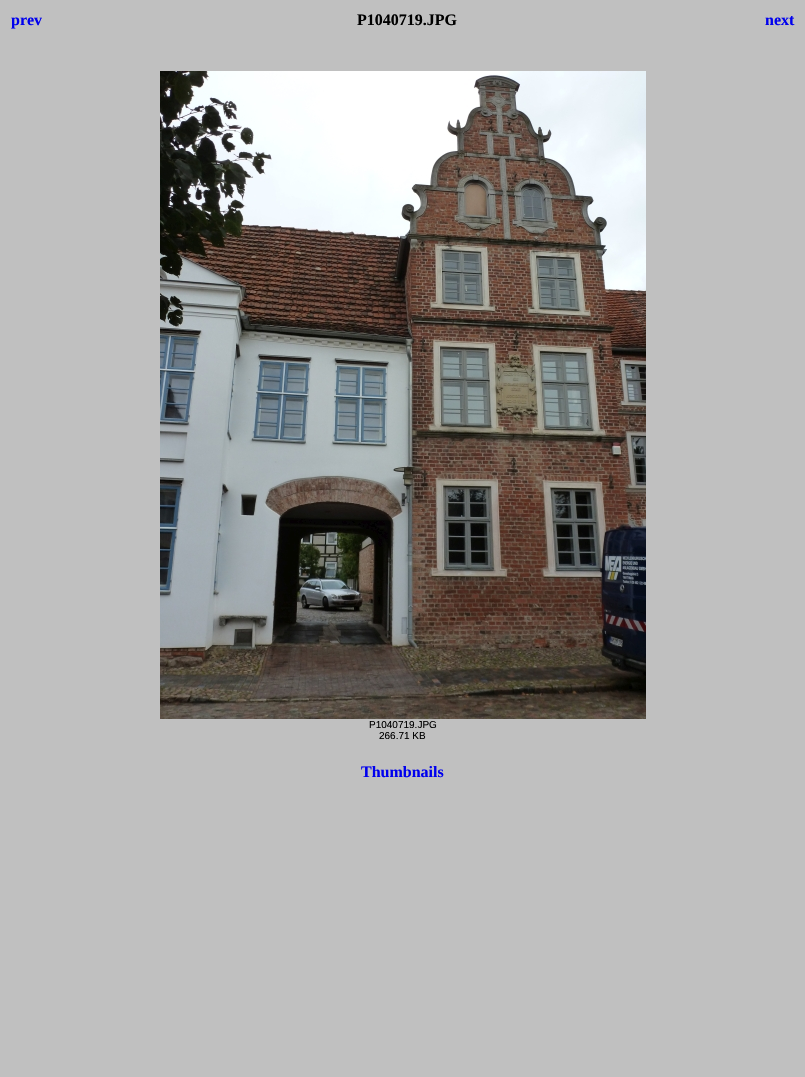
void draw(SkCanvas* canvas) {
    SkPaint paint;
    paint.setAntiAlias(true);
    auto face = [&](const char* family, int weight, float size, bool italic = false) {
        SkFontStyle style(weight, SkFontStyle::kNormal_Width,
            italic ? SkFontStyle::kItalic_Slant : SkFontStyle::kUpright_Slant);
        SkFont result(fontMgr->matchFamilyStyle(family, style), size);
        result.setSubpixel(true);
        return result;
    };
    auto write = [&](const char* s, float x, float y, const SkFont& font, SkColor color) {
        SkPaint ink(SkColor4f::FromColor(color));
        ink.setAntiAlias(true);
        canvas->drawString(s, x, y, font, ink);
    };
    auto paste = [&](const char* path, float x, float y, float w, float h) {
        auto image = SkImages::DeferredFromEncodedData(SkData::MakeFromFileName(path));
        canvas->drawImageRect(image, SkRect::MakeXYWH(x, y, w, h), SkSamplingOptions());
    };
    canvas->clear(SkColorSetRGB(192, 192, 192));
    auto kFont1 = face("Liberation Serif", 700, 16);
    write("prev", 11, 25, kFont1, SkColorSetRGB(0, 0, 238));
    write("P1040719.JPG", 357, 25, kFont1, SK_ColorBLACK);
    write("next", 765, 25, kFont1, SkColorSetRGB(0, 0, 238));
    paste("pic1.png", 160, 71, 486, 648);
    auto kFont2 = face("Liberation Sans", 400, 10);
    write("P1040719.JPG", 369, 728, kFont2, SK_ColorBLACK);
    write("266.71 KB", 379, 739, kFont2, SK_ColorBLACK);
    write("Thumbnails", 361, 777, kFont1, SkColorSetRGB(0, 0, 238));
}
